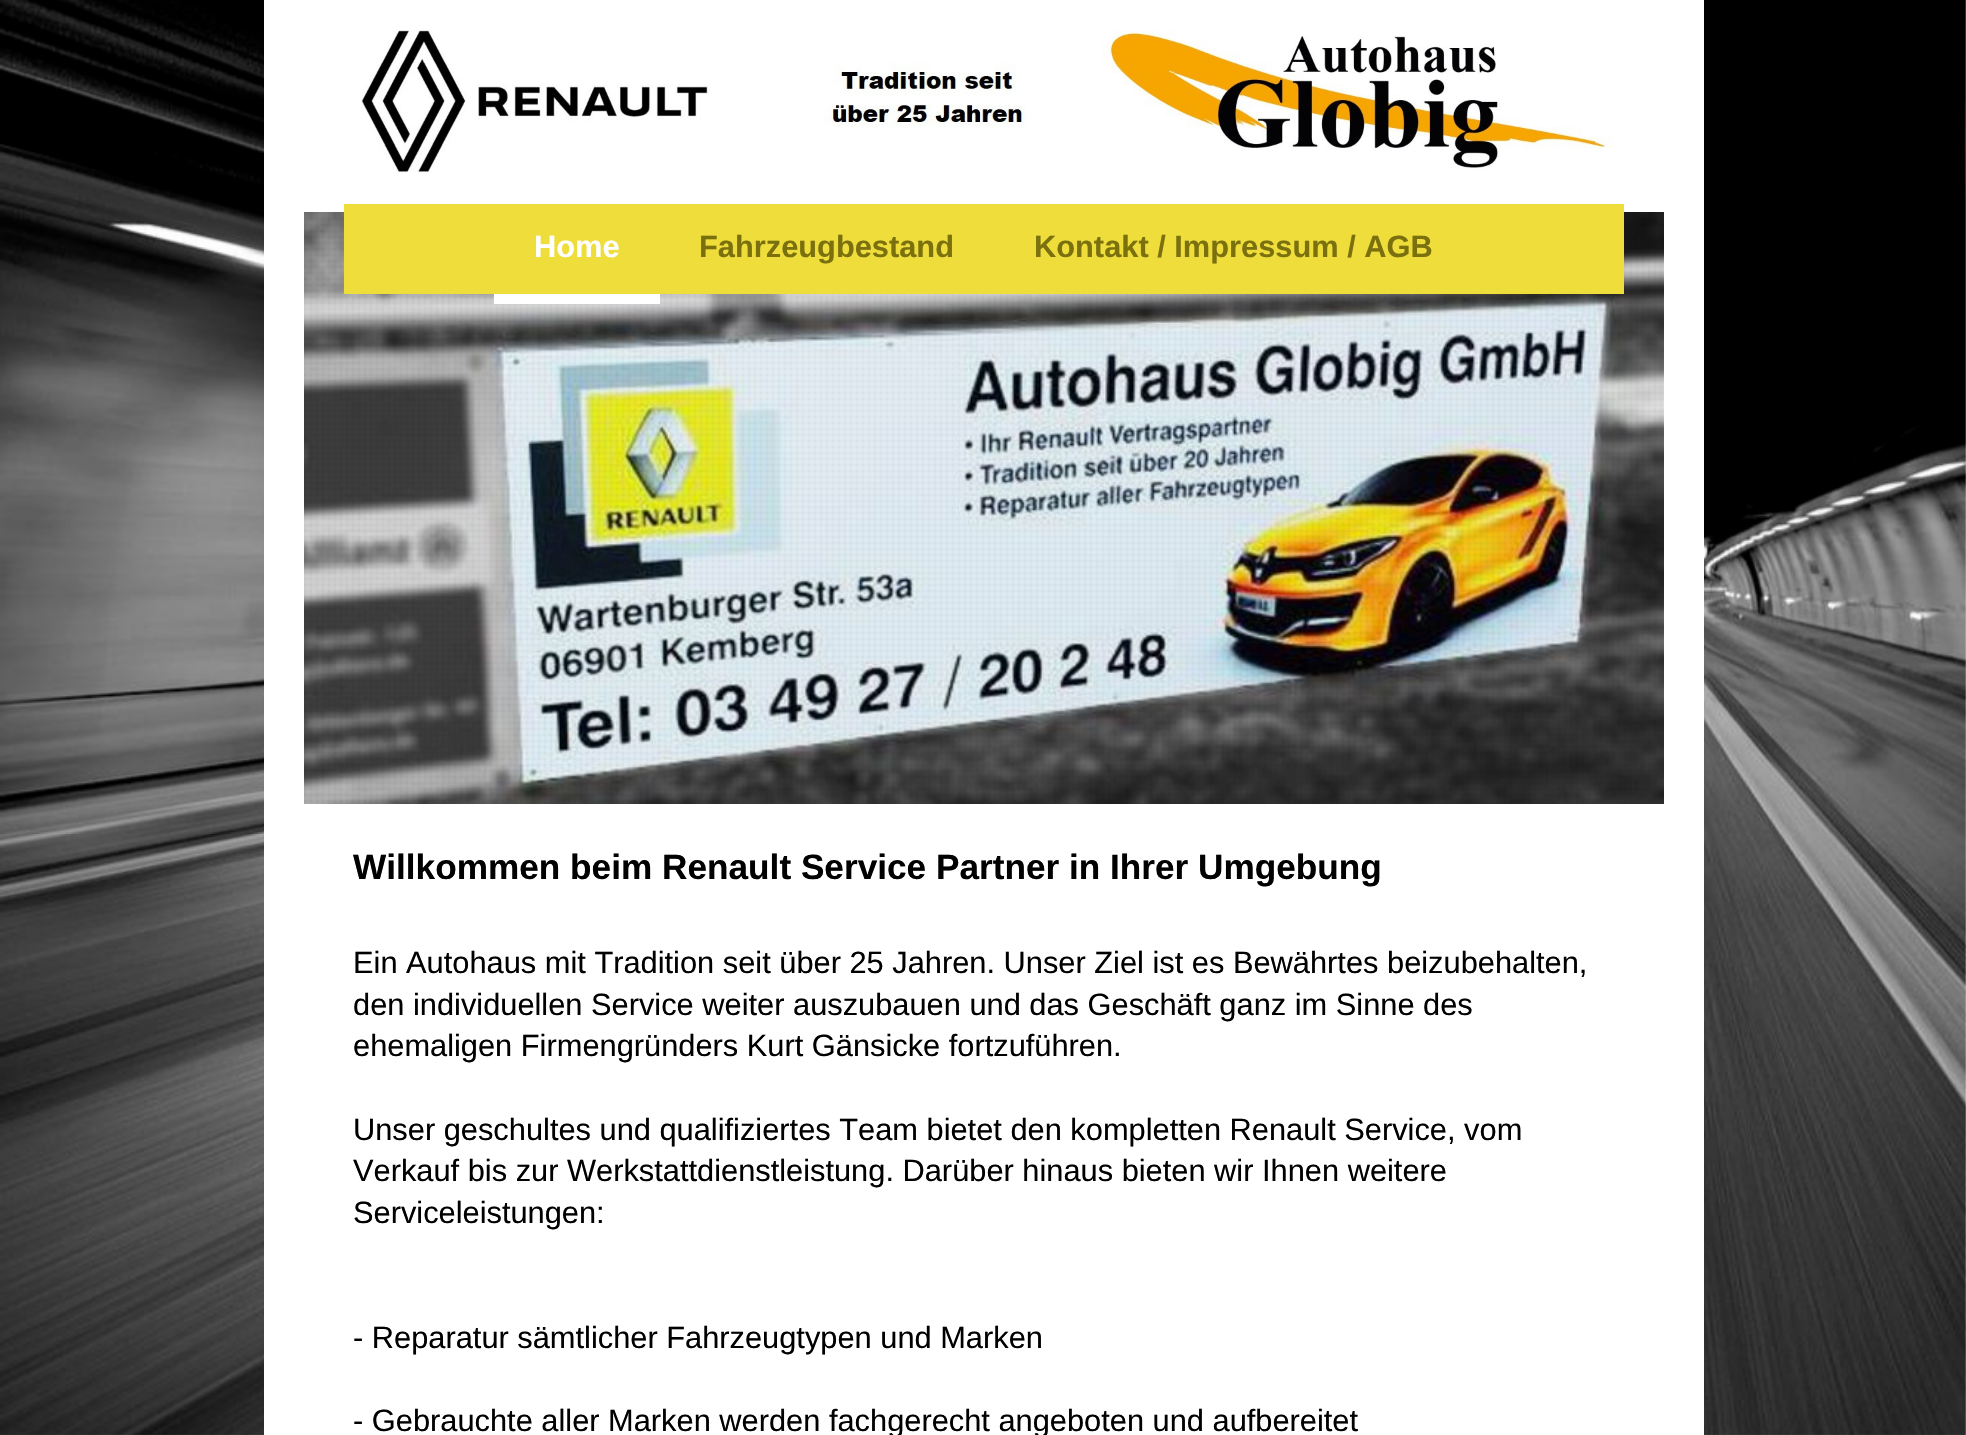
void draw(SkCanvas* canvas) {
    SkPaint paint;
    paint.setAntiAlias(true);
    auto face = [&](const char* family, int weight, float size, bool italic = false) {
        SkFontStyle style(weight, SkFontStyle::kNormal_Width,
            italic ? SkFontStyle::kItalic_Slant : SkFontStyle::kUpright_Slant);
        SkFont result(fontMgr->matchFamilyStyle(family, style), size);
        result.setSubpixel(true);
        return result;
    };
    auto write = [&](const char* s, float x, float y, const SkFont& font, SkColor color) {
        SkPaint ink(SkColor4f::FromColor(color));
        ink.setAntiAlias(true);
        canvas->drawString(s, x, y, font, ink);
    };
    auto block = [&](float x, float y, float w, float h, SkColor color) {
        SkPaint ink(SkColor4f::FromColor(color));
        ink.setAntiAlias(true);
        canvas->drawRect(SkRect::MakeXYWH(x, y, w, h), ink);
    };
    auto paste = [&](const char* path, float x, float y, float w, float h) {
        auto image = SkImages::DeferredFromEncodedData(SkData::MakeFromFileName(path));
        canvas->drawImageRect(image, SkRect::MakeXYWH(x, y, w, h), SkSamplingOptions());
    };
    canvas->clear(SK_ColorWHITE);
    paste("pic1.png", 0, 0, 1966, 1435);
    block(264, 0, 1440, 1435, SK_ColorWHITE);
    paste("pic2.png", 361, 30, 1252, 143);
    paste("pic3.png", 304, 212, 1360, 592);
    paste("pic4.png", 304, 212, 1360, 592);
    block(344, 204, 1280, 90, SkColorSetRGB(238, 221, 59));
    block(494, 294, 166, 10, SK_ColorWHITE);
    auto kFont1 = face("Liberation Sans", 700, 30.8f);
    write("Home", 534, 257, kFont1, SK_ColorWHITE);
    write("Fahrzeugbestand", 699, 257, kFont1, SkColorSetRGB(122, 112, 14));
    write("Kontakt / Impressum / AGB", 1034, 257, kFont1, SkColorSetRGB(122, 112, 14));
    auto kFont2 = face("Liberation Sans", 700, 35.2f);
    write("Willkommen beim Renault Service Partner in Ihrer Umgebung", 353, 879, kFont2, SK_ColorBLACK);
    auto kFont3 = face("Liberation Sans", 400, 30.8f);
    write("Ein Autohaus mit Tradition seit über 25 Jahren. Unser Ziel ist es Bewährtes beizubehalten,", 353, 973, kFont3, SK_ColorBLACK);
    write("den individuellen Service weiter auszubauen und das Geschäft ganz im Sinne des", 353, 1015, kFont3, SK_ColorBLACK);
    write("ehemaligen Firmengründers Kurt Gänsicke fortzuführen.", 353, 1056, kFont3, SK_ColorBLACK);
    write("Unser geschultes und qualifiziertes Team bietet den kompletten Renault Service, vom", 353, 1140, kFont3, SK_ColorBLACK);
    write("Verkauf bis zur Werkstattdienstleistung. Darüber hinaus bieten wir Ihnen weitere", 353, 1181, kFont3, SK_ColorBLACK);
    write("Serviceleistungen:", 353, 1223, kFont3, SK_ColorBLACK);
    write("- Reparatur sämtlicher Fahrzeugtypen und Marken", 353, 1348, kFont3, SK_ColorBLACK);
    write("- Gebrauchte aller Marken werden fachgerecht angeboten und aufbereitet", 353, 1431, kFont3, SK_ColorBLACK);
}
